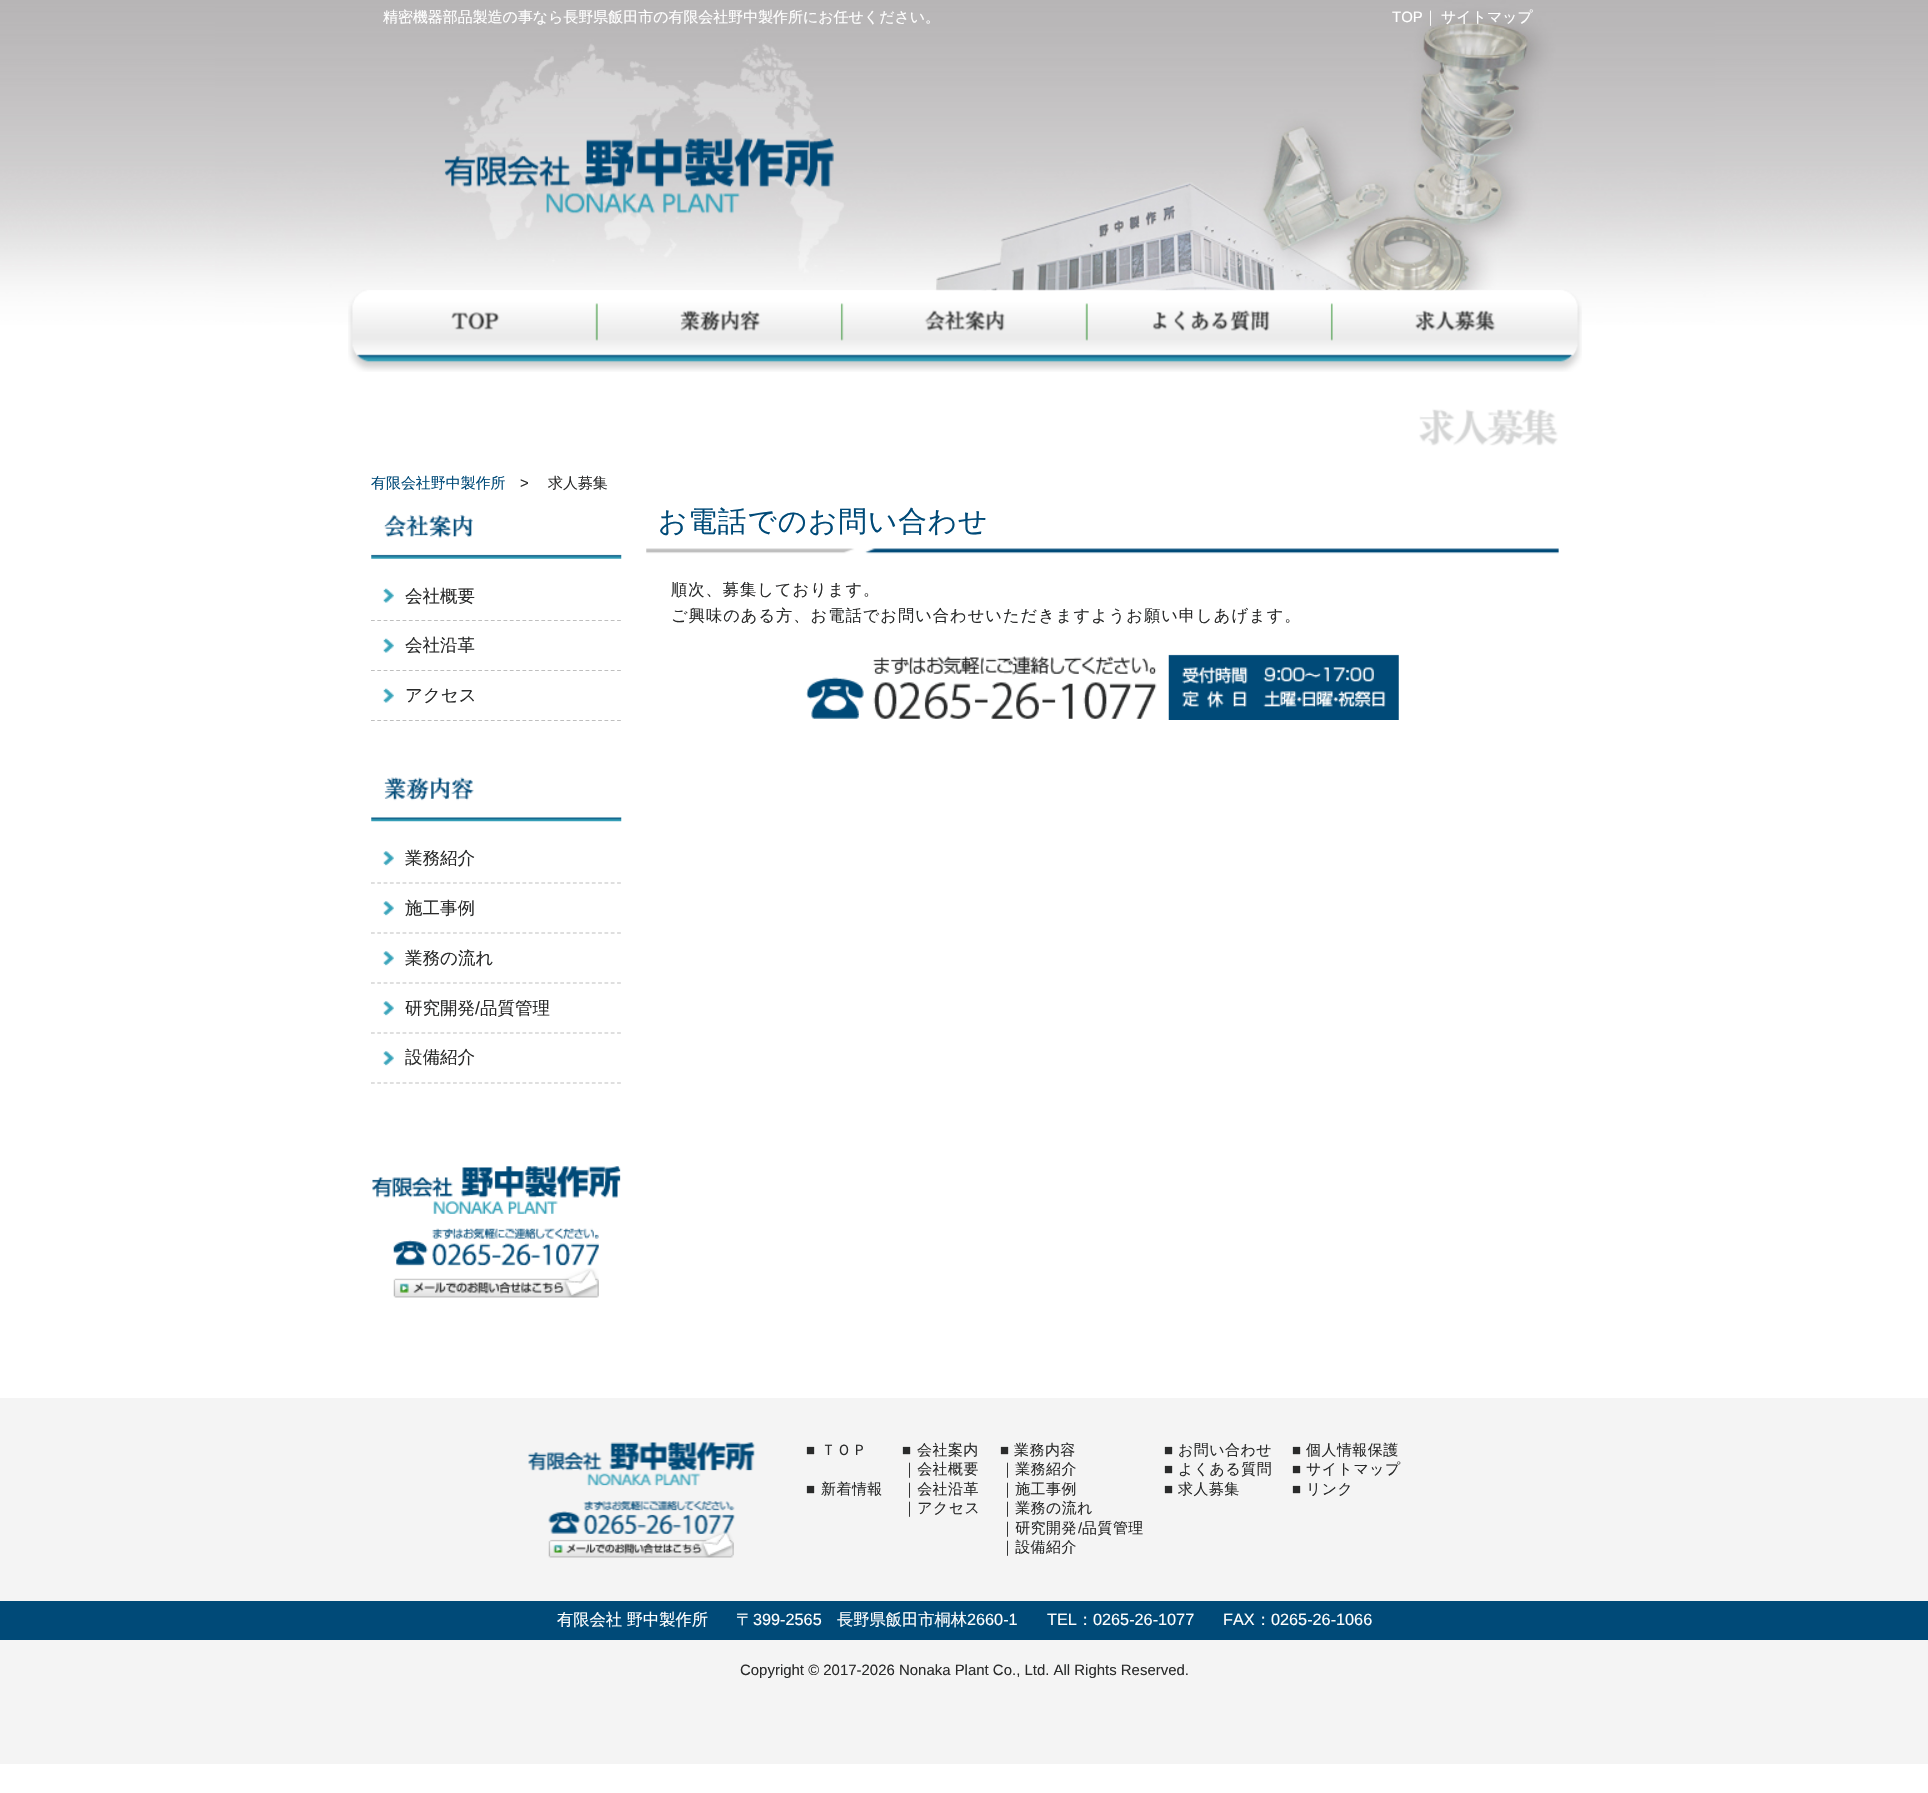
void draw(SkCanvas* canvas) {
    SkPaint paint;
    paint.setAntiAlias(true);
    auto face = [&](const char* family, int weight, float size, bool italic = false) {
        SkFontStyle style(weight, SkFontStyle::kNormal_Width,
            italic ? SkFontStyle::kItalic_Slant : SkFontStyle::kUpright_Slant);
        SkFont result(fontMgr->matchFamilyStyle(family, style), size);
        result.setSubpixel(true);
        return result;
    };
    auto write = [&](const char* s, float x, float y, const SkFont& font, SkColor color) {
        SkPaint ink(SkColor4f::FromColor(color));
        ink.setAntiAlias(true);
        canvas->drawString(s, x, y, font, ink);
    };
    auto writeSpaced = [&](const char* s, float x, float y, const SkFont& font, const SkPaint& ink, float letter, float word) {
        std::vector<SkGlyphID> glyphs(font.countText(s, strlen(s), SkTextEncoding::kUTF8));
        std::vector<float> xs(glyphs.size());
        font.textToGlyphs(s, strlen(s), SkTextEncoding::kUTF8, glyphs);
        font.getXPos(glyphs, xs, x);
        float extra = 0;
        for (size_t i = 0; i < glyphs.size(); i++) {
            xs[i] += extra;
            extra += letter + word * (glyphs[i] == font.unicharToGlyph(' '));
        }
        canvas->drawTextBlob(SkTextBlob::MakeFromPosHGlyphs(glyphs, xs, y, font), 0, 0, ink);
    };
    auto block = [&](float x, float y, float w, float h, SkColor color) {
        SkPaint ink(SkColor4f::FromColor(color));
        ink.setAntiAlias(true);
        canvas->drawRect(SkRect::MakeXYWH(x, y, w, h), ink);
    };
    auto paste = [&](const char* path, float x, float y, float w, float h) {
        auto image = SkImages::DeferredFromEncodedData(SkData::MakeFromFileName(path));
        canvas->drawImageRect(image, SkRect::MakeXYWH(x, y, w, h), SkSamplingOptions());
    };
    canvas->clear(SK_ColorWHITE);
    paste("pic1.png", 0, 0, 1928, 325);
    auto kFont1 = face("WenQuanYi Zen Hei", 500, 14.95f);
    write("精密機器部品製造の事なら長野県飯田市の有限会社野中製作所にお任せください。", 383, 22, kFont1, SK_ColorWHITE);
    auto kFont2 = face("Liberation Sans", 400, 14.95f);
    write("TOP", 1392, 22, kFont2, SK_ColorWHITE);
    write("｜", 1423, 22, kFont1, SK_ColorWHITE);
    write("サイトマップ", 1441, 22, kFont1, SK_ColorWHITE);
    paste("pic2.png", 444, 138, 390, 76);
    paste("pic3.png", 348, 289, 1234, 83);
    paste("pic4.png", 451, 303, 147, 38);
    paste("pic5.png", 680, 303, 164, 38);
    paste("pic6.png", 924, 303, 164, 38);
    paste("pic7.png", 1152, 303, 181, 38);
    paste("pic8.png", 1415, 310, 81, 22);
    paste("pic9.png", 1419, 408, 139, 38);
    write("有限会社野中製作所", 371, 488, kFont1, SkColorSetRGB(0, 74, 120));
    write(">", 520, 488, kFont2, SkColorSetRGB(42, 43, 43));
    write("求人募集", 548, 488, kFont1, SkColorSetRGB(42, 43, 43));
    paste("pic10.png", 646, 548, 913, 6);
    auto kFont3 = face("WenQuanYi Zen Hei", 500, 28.6f);
    paint.setColor(SkColorSetRGB(0, 74, 120));
    writeSpaced("お電話でのお問い合わせ", 658, 531, kFont3, paint, 1, 0);
    auto kFont4 = face("WenQuanYi Zen Hei", 500, 16.25f);
    paint.setColor(SkColorSetRGB(42, 43, 43));
    writeSpaced("順次、募集しております。", 671, 595, kFont4, paint, 1, 0);
    writeSpaced("ご興味のある方、お電話でお問い合わせいただきますようお願い申しあげます。", 671, 621, kFont4, paint, 1, 0);
    paste("pic11.png", 806, 654, 593, 66);
    paste("pic12.png", 371, 514, 251, 45);
    paint.setStyle(SkPaint::kStroke_Style);
    paint.setStrokeWidth(1.2f);
    paint.setColor(SkColorSetRGB(191, 191, 191));
    paint.setPathEffect(SkDashPathEffect::Make({{3.75f, 2.56f}}, 0));
    canvas->drawPath(SkPathBuilder().moveTo(371, 620.5f).lineTo(621, 620.5f).detach(), paint);
    paint.setPathEffect(nullptr);
    paste("pic13.png", 383, 588, 11, 15);
    auto kFont5 = face("WenQuanYi Zen Hei", 500, 17.5f);
    write("会社概要", 405, 602, kFont5, SkColorSetRGB(42, 43, 43));
    paint.setPathEffect(SkDashPathEffect::Make({{3.75f, 2.56f}}, 0));
    canvas->drawPath(SkPathBuilder().moveTo(371, 670.5f).lineTo(621, 670.5f).detach(), paint);
    paint.setPathEffect(nullptr);
    paste("pic13.png", 383, 638, 11, 15);
    write("会社沿革", 405, 651, kFont5, SkColorSetRGB(42, 43, 43));
    paint.setPathEffect(SkDashPathEffect::Make({{3.75f, 2.56f}}, 0));
    canvas->drawPath(SkPathBuilder().moveTo(371, 720.5f).lineTo(621, 720.5f).detach(), paint);
    paint.setPathEffect(nullptr);
    paste("pic13.png", 383, 688, 11, 15);
    write("アクセス", 405, 701, kFont5, SkColorSetRGB(42, 43, 43));
    paste("pic14.png", 371, 777, 251, 45);
    paint.setPathEffect(SkDashPathEffect::Make({{3.75f, 2.56f}}, 0));
    canvas->drawPath(SkPathBuilder().moveTo(371, 883).lineTo(621, 883).detach(), paint);
    paint.setPathEffect(nullptr);
    paste("pic15.png", 383, 851, 11, 15);
    write("業務紹介", 405, 864, kFont5, SkColorSetRGB(42, 43, 43));
    paint.setPathEffect(SkDashPathEffect::Make({{3.75f, 2.56f}}, 0));
    canvas->drawPath(SkPathBuilder().moveTo(371, 933).lineTo(621, 933).detach(), paint);
    paint.setPathEffect(nullptr);
    paste("pic15.png", 383, 901, 11, 15);
    write("施工事例", 405, 914, kFont5, SkColorSetRGB(42, 43, 43));
    paint.setPathEffect(SkDashPathEffect::Make({{3.75f, 2.56f}}, 0));
    canvas->drawPath(SkPathBuilder().moveTo(371, 983).lineTo(621, 983).detach(), paint);
    paint.setPathEffect(nullptr);
    paste("pic15.png", 383, 951, 11, 15);
    write("業務の流れ", 405, 964, kFont5, SkColorSetRGB(42, 43, 43));
    paint.setPathEffect(SkDashPathEffect::Make({{3.75f, 2.56f}}, 0));
    canvas->drawPath(SkPathBuilder().moveTo(371, 1033).lineTo(621, 1033).detach(), paint);
    paint.setPathEffect(nullptr);
    paste("pic15.png", 383, 1001, 11, 15);
    write("研究開発", 405, 1014, kFont5, SkColorSetRGB(42, 43, 43));
    auto kFont6 = face("Liberation Sans", 400, 17.5f);
    write("/", 475, 1014, kFont6, SkColorSetRGB(42, 43, 43));
    write("品質管理", 480, 1014, kFont5, SkColorSetRGB(42, 43, 43));
    paint.setPathEffect(SkDashPathEffect::Make({{3.75f, 2.56f}}, 0));
    canvas->drawPath(SkPathBuilder().moveTo(371, 1083).lineTo(621, 1083).detach(), paint);
    paint.setPathEffect(nullptr);
    paste("pic15.png", 383, 1051, 11, 15);
    write("設備紹介", 405, 1063, kFont5, SkColorSetRGB(42, 43, 43));
    paste("pic16.png", 372, 1166, 249, 48);
    paste("pic17.png", 393, 1228, 206, 38);
    paste("pic18.png", 393, 1268, 206, 30);
    block(0, 1398, 1928, 366, SkColorSetRGB(244, 244, 244));
    paste("pic19.png", 528, 1442, 227, 44);
    paste("pic20.png", 548, 1501, 187, 33);
    paste("pic21.png", 548, 1533, 186, 25);
    paint.setStyle(SkPaint::kFill_Style);
    paint.setColor(SkColorSetRGB(42, 43, 43));
    writeSpaced("■", 806, 1455, kFont2, paint, 0.5f, 0);
    writeSpaced("ＴＯＰ", 821, 1455, kFont1, paint, 0.5f, 0);
    writeSpaced("■", 806, 1494, kFont2, paint, 0.5f, 0);
    writeSpaced("新着情報", 821, 1494, kFont1, paint, 0.5f, 0);
    writeSpaced("■", 902, 1455, kFont2, paint, 0.5f, 0);
    writeSpaced("会社案内", 917, 1455, kFont1, paint, 0.5f, 0);
    writeSpaced("｜会社概要", 902, 1474, kFont1, paint, 0.5f, 0);
    writeSpaced("｜会社沿革", 902, 1494, kFont1, paint, 0.5f, 0);
    writeSpaced("｜アクセス", 902, 1513, kFont1, paint, 0.5f, 0);
    writeSpaced("■", 1000, 1455, kFont2, paint, 0.5f, 0);
    writeSpaced("業務内容", 1014, 1455, kFont1, paint, 0.5f, 0);
    writeSpaced("｜業務紹介", 1000, 1474, kFont1, paint, 0.5f, 0);
    writeSpaced("｜施工事例", 1000, 1494, kFont1, paint, 0.5f, 0);
    writeSpaced("｜業務の流れ", 1000, 1513, kFont1, paint, 0.5f, 0);
    writeSpaced("｜研究開発", 1000, 1533, kFont1, paint, 0.5f, 0);
    writeSpaced("/", 1078, 1533, kFont2, paint, 0.5f, 0);
    writeSpaced("品質管理", 1082, 1533, kFont1, paint, 0.5f, 0);
    writeSpaced("｜設備紹介", 1000, 1552, kFont1, paint, 0.5f, 0);
    writeSpaced("■", 1164, 1455, kFont2, paint, 0.5f, 0);
    writeSpaced("お問い合わせ", 1178, 1455, kFont1, paint, 0.5f, 0);
    writeSpaced("■", 1164, 1474, kFont2, paint, 0.5f, 0);
    writeSpaced("よくある質問", 1178, 1474, kFont1, paint, 0.5f, 0);
    writeSpaced("■", 1164, 1494, kFont2, paint, 0.5f, 0);
    writeSpaced("求人募集", 1178, 1494, kFont1, paint, 0.5f, 0);
    writeSpaced("■", 1292, 1455, kFont2, paint, 0.5f, 0);
    writeSpaced("個人情報保護", 1306, 1455, kFont1, paint, 0.5f, 0);
    writeSpaced("■", 1292, 1474, kFont2, paint, 0.5f, 0);
    writeSpaced("サイトマップ", 1306, 1474, kFont1, paint, 0.5f, 0);
    writeSpaced("■", 1292, 1494, kFont2, paint, 0.5f, 0);
    writeSpaced("リンク", 1306, 1494, kFont1, paint, 0.5f, 0);
    block(0, 1601, 1928, 39, SkColorSetRGB(0, 74, 120));
    write("有限会社 野中製作所", 557, 1625, kFont4, SK_ColorWHITE);
    write("〒", 736, 1625, kFont4, SK_ColorWHITE);
    auto kFont7 = face("Liberation Sans", 400, 16.25f);
    write("399-2565", 753, 1625, kFont7, SK_ColorWHITE);
    write("長野県飯田市桐林", 837, 1625, kFont4, SK_ColorWHITE);
    write("2660-1", 967, 1625, kFont7, SK_ColorWHITE);
    write("TEL", 1047, 1625, kFont7, SK_ColorWHITE);
    write("：", 1077, 1625, kFont4, SK_ColorWHITE);
    write("0265-26-1077", 1093, 1625, kFont7, SK_ColorWHITE);
    write("FAX", 1223, 1625, kFont7, SK_ColorWHITE);
    write("：", 1255, 1625, kFont4, SK_ColorWHITE);
    write("0265-26-1066", 1271, 1625, kFont7, SK_ColorWHITE);
    write("Copyright © 2017-2026 Nonaka Plant Co., Ltd. All Rights Reserved.", 740, 1675, kFont2, SkColorSetRGB(42, 43, 43));
}
